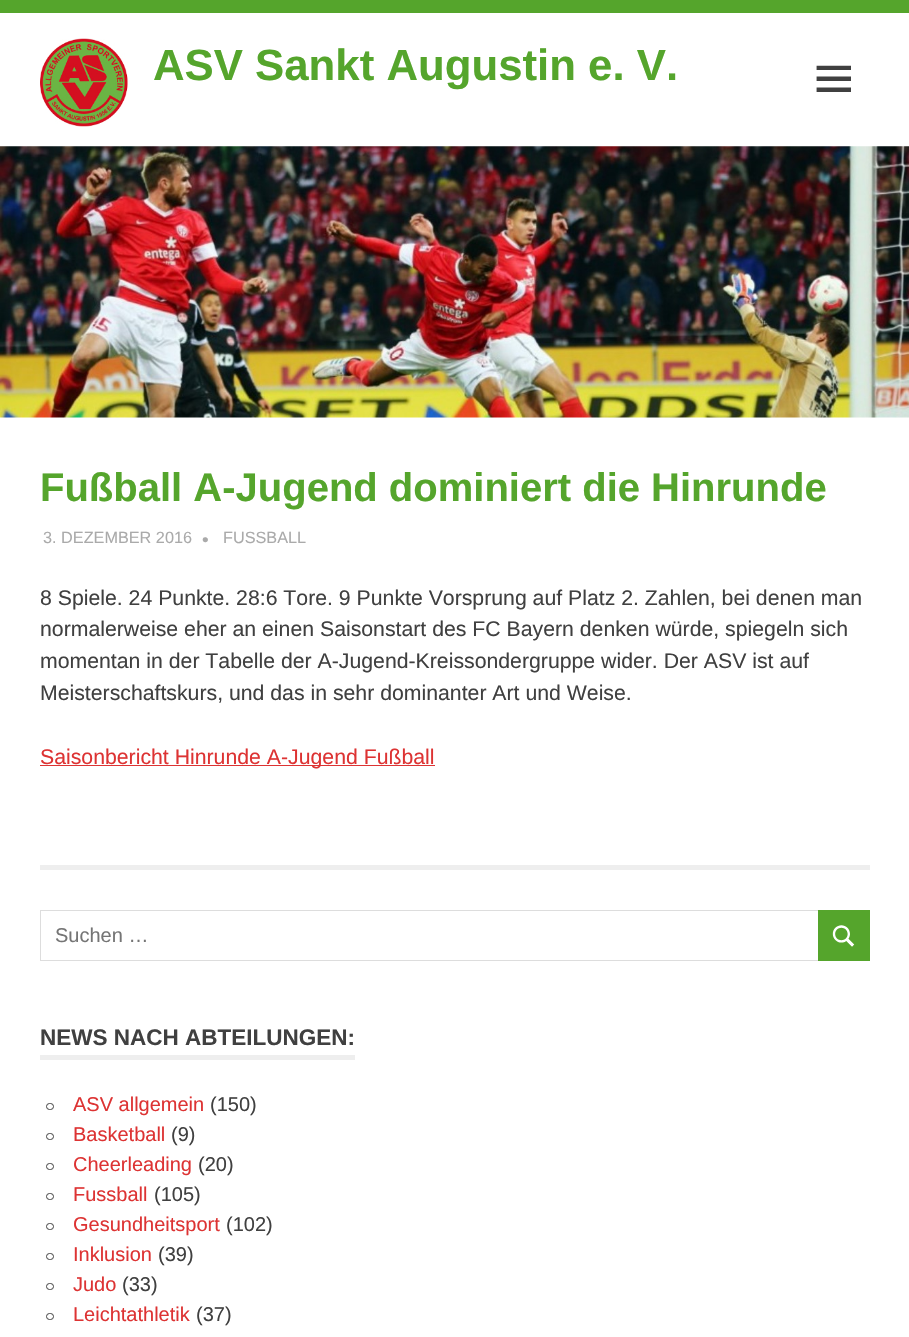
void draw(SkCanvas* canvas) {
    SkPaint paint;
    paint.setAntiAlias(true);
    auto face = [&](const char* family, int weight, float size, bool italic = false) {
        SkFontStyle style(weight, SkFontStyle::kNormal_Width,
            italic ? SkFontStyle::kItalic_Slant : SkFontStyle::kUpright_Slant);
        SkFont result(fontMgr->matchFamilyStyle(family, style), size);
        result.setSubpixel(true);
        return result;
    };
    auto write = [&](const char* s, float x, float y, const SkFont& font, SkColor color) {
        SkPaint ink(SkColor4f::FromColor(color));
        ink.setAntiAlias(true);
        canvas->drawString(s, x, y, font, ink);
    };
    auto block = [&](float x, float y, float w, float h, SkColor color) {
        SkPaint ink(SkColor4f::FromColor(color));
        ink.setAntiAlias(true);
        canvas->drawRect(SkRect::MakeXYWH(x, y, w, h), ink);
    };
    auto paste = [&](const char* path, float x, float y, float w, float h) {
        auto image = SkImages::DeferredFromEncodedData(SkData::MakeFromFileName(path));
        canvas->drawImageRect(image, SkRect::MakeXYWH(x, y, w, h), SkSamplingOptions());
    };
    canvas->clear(SK_ColorWHITE);
    block(0, 0, 909, 13, SkColorSetRGB(85, 165, 44));
    paste("pic1.png", 40, 38, 88, 89);
    auto kFont1 = face("Liberation Sans", 700, 43.75f);
    write("ASV Sankt Augustin e. V.", 153, 80, kFont1, SkColorSetRGB(85, 165, 44));
    paste("pic2.png", 816, 65, 35, 27);
    paste("pic3.png", 0, 146, 909, 272);
    auto kFont2 = face("Liberation Sans", 700, 40);
    write("Fußball A-Jugend dominiert die Hinrunde", 40, 501, kFont2, SkColorSetRGB(85, 165, 44));
    auto kFont3 = face("Liberation Sans", 400, 16.25f);
    write("3. DEZEMBER 2016", 43, 543, kFont3, SkColorSetRGB(170, 170, 170));
    auto kFont4 = face("Liberation Sans", 400, 19);
    write("•", 202, 546, kFont4, SkColorSetRGB(170, 170, 170));
    write("FUSSBALL", 223, 543, kFont3, SkColorSetRGB(170, 170, 170));
    auto kFont5 = face("Liberation Sans", 400, 21.25f);
    write("8 Spiele. 24 Punkte. 28:6 Tore. 9 Punkte Vorsprung auf Platz 2. Zahlen, bei denen man", 40, 605, kFont5, SkColorSetRGB(64, 64, 64));
    write("normalerweise eher an einen Saisonstart des FC Bayern denken würde, spiegeln sich", 40, 636, kFont5, SkColorSetRGB(64, 64, 64));
    write("momentan in der Tabelle der A-Jugend-Kreissondergruppe wider. Der ASV ist auf", 40, 668, kFont5, SkColorSetRGB(64, 64, 64));
    write("Meisterschaftskurs, und das in sehr dominanter Art und Weise.", 40, 700, kFont5, SkColorSetRGB(64, 64, 64));
    block(40, 765, 395, 1, SkColorSetRGB(221, 51, 51));
    write("Saisonbericht Hinrunde A-Jugend Fußball", 40, 764, kFont5, SkColorSetRGB(221, 51, 51));
    block(40, 865, 830, 5, SkColorSetRGB(238, 238, 238));
    paint.setStyle(SkPaint::kStroke_Style);
    paint.setStrokeWidth(1);
    paint.setColor(SkColorSetRGB(221, 221, 221));
    canvas->drawRect(SkRect::MakeXYWH(40.5f, 910.5f, 778, 50), paint);
    auto kFont6 = face("Liberation Sans", 400, 20);
    write("Suchen …", 55, 942, kFont6, SkColorSetRGB(117, 117, 117));
    block(818, 910, 52, 51, SkColorSetRGB(85, 165, 44));
    paste("pic4.png", 832, 925, 23, 22);
    block(40, 1055, 315, 5, SkColorSetRGB(238, 238, 238));
    auto kFont7 = face("Liberation Sans", 700, 22.5f);
    write("NEWS NACH ABTEILUNGEN:", 40, 1045, kFont7, SkColorSetRGB(64, 64, 64));
    paint.setColor(SkColorSetRGB(64, 64, 64));
    canvas->drawRoundRect(SkRect::MakeXYWH(46.5f, 1103.5f, 7, 6), 3, 3, paint);
    write("ASV allgemein", 73, 1111, kFont6, SkColorSetRGB(221, 51, 51));
    write("(150)", 210, 1111, kFont6, SkColorSetRGB(64, 64, 64));
    canvas->drawRoundRect(SkRect::MakeXYWH(46.5f, 1133.5f, 7, 6), 3, 3, paint);
    write("Basketball", 73, 1141, kFont6, SkColorSetRGB(221, 51, 51));
    write("(9)", 171, 1141, kFont6, SkColorSetRGB(64, 64, 64));
    canvas->drawRoundRect(SkRect::MakeXYWH(46.5f, 1163.5f, 7, 6), 3, 3, paint);
    write("Cheerleading", 73, 1171, kFont6, SkColorSetRGB(221, 51, 51));
    write("(20)", 198, 1171, kFont6, SkColorSetRGB(64, 64, 64));
    canvas->drawRoundRect(SkRect::MakeXYWH(46.5f, 1193.5f, 7, 6), 3, 3, paint);
    write("Fussball", 73, 1201, kFont6, SkColorSetRGB(221, 51, 51));
    write("(105)", 154, 1201, kFont6, SkColorSetRGB(64, 64, 64));
    canvas->drawRoundRect(SkRect::MakeXYWH(46.5f, 1223.5f, 7, 6), 3, 3, paint);
    write("Gesundheitsport", 73, 1231, kFont6, SkColorSetRGB(221, 51, 51));
    write("(102)", 226, 1231, kFont6, SkColorSetRGB(64, 64, 64));
    canvas->drawRoundRect(SkRect::MakeXYWH(46.5f, 1253.5f, 7, 6), 3, 3, paint);
    write("Inklusion", 73, 1261, kFont6, SkColorSetRGB(221, 51, 51));
    write("(39)", 158, 1261, kFont6, SkColorSetRGB(64, 64, 64));
    canvas->drawRoundRect(SkRect::MakeXYWH(46.5f, 1283.5f, 7, 6), 3, 3, paint);
    write("Judo", 73, 1291, kFont6, SkColorSetRGB(221, 51, 51));
    write("(33)", 122, 1291, kFont6, SkColorSetRGB(64, 64, 64));
    canvas->drawRoundRect(SkRect::MakeXYWH(46.5f, 1313.5f, 7, 6), 3, 3, paint);
    write("Leichtathletik", 73, 1321, kFont6, SkColorSetRGB(221, 51, 51));
    write("(37)", 196, 1321, kFont6, SkColorSetRGB(64, 64, 64));
}
